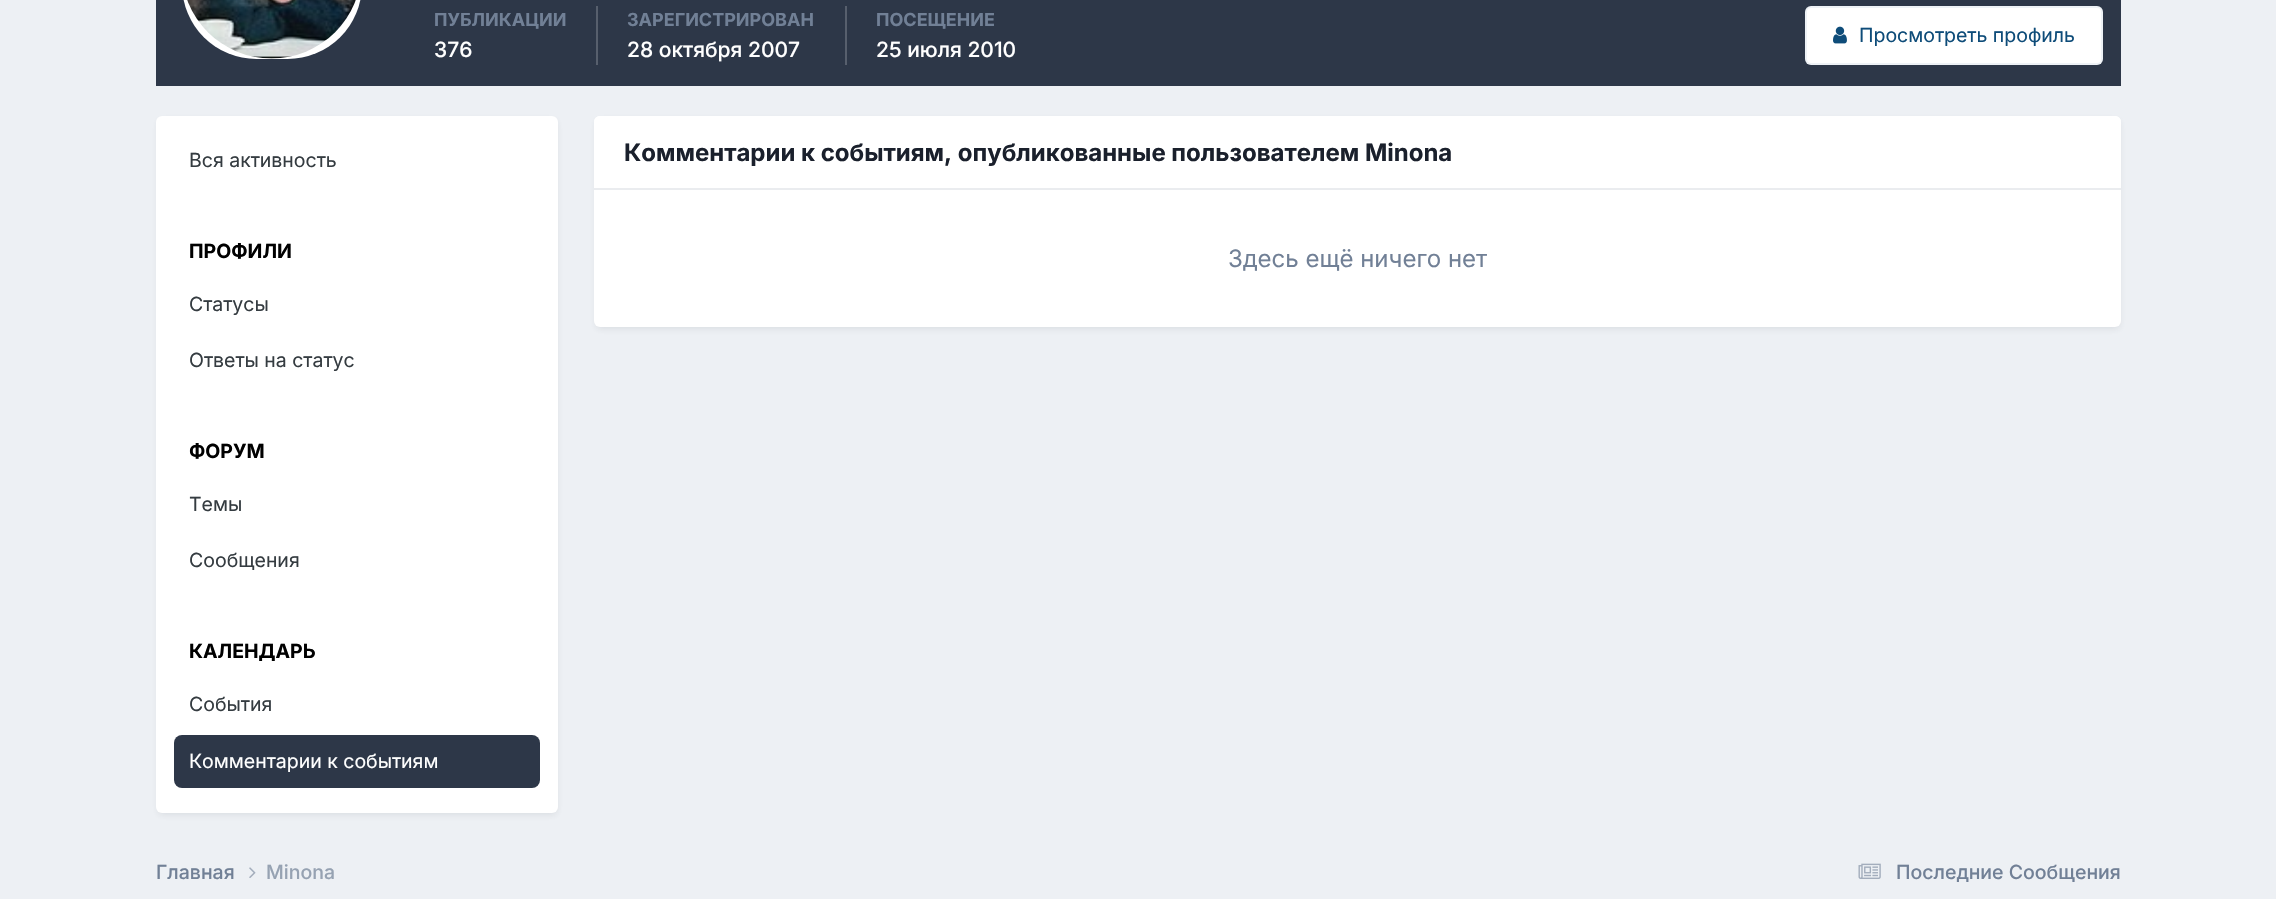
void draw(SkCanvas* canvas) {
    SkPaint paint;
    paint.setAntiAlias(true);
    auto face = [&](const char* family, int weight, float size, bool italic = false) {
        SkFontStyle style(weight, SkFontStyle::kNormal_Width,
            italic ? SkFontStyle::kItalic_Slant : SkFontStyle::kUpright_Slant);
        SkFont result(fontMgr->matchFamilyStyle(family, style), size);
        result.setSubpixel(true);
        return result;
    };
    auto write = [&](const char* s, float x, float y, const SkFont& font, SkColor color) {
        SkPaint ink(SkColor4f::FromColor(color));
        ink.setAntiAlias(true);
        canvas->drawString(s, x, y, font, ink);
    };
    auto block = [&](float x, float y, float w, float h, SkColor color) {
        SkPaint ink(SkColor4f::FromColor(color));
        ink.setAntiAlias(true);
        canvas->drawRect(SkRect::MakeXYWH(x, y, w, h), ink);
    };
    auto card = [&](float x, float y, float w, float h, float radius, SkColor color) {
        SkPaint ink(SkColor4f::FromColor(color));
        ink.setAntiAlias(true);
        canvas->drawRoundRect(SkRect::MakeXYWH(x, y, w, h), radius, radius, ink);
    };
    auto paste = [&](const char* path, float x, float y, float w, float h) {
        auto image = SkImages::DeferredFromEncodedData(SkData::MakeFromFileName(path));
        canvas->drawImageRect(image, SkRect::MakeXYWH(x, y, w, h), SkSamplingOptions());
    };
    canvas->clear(SkColorSetRGB(237, 240, 244));
    block(156, 0, 1965, 86, SkColorSetRGB(45, 55, 72));
    card(182, -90, 180, 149, 90, SK_ColorWHITE);
    paste("pic1.png", 187, 0, 169, 59);
    block(596, 6, 2, 59, SkColorSetRGB(87, 95, 109));
    auto kFont1 = face("Inter", 700, 18);
    write("ПУБЛИКАЦИИ", 434, 26, kFont1, SkColorSetRGB(113, 128, 150));
    auto kFont2 = face("Inter", 500, 21);
    write("376", 434, 57, kFont2, SK_ColorWHITE);
    block(845, 6, 2, 59, SkColorSetRGB(87, 95, 109));
    write("ЗАРЕГИСТРИРОВАН", 627, 26, kFont1, SkColorSetRGB(113, 128, 150));
    write("28 октября 2007", 627, 57, kFont2, SK_ColorWHITE);
    write("ПОСЕЩЕНИЕ", 876, 26, kFont1, SkColorSetRGB(113, 128, 150));
    write("25 июля 2010", 876, 57, kFont2, SK_ColorWHITE);
    card(1805, 6, 298, 59, 6, SK_ColorWHITE);
    paint.setStyle(SkPaint::kStroke_Style);
    paint.setStrokeWidth(2);
    paint.setColor(SkColorSetARGB(18, 14, 76, 121));
    canvas->drawRoundRect(SkRect::MakeXYWH(1806, 7, 296, 57), 5, 5, paint);
    paste("pic2.png", 1833, 26, 14, 18);
    auto kFont3 = face("Inter", 400, 19.5f);
    write("Просмотреть профиль", 1859, 42, kFont3, SkColorSetRGB(14, 76, 121));
    paint.setStyle(SkPaint::kFill_Style);
    paint.setColor(SkColorSetARGB(26, 45, 55, 72));
    paint.setMaskFilter(SkMaskFilter::MakeBlur(kNormal_SkBlurStyle, 3));
    canvas->drawRoundRect(SkRect::MakeXYWH(158, 120, 399, 695), 5, 5, paint);
    paint.setMaskFilter(nullptr);
    card(156, 116, 402, 697, 6, SK_ColorWHITE);
    write("Вся активность", 189, 167, kFont3, SkColorSetRGB(53, 60, 65));
    auto kFont4 = face("Inter", 700, 19.5f);
    write("ПРОФИЛИ", 189, 258, kFont4, SK_ColorBLACK);
    write("Статусы", 189, 311, kFont3, SkColorSetRGB(53, 60, 65));
    write("Ответы на статус", 189, 367, kFont3, SkColorSetRGB(53, 60, 65));
    write("ФОРУМ", 189, 458, kFont4, SK_ColorBLACK);
    write("Темы", 189, 511, kFont3, SkColorSetRGB(53, 60, 65));
    write("Сообщения", 189, 567, kFont3, SkColorSetRGB(53, 60, 65));
    write("КАЛЕНДАРЬ", 189, 658, kFont4, SK_ColorBLACK);
    write("События", 189, 711, kFont3, SkColorSetRGB(53, 60, 65));
    card(174, 735, 366, 53, 8, SkColorSetRGB(45, 55, 72));
    write("Комментарии к событиям", 189, 768, kFont3, SK_ColorWHITE);
    paint.setMaskFilter(SkMaskFilter::MakeBlur(kNormal_SkBlurStyle, 3));
    canvas->drawRoundRect(SkRect::MakeXYWH(596, 120, 1524, 209), 5, 5, paint);
    paint.setMaskFilter(nullptr);
    card(594, 116, 1527, 211, 6, SK_ColorWHITE);
    paint.setColor(SK_ColorWHITE);
    canvas->drawPath(SkPathBuilder().moveTo(600, 116).lineTo(2115, 116).cubicTo(2118.5f, 116, 2121, 118.5f, 2121, 122).lineTo(2121, 189).lineTo(594, 189).lineTo(594, 122).cubicTo(594, 118.5f, 596.5f, 116, 600, 116).close().detach(), paint);
    block(594, 188, 1527, 2, SkColorSetRGB(234, 236, 239));
    auto kFont5 = face("Inter", 700, 24);
    write("Комментарии к событиям, опубликованные пользователем Minona", 624, 161, kFont5, SkColorSetRGB(26, 32, 44));
    auto kFont6 = face("Inter", 400, 24);
    write("Здесь ещё ничего нет", 1228, 267, kFont6, SkColorSetRGB(113, 128, 150));
    auto kFont7 = face("Inter", 500, 19.5f);
    write("Главная", 156, 879, kFont7, SkColorSetRGB(113, 128, 150));
    paste("pic3.png", 249, 867, 7, 11);
    write("Minona", 266, 879, kFont7, SkColorSetRGB(150, 162, 178));
    paste("pic4.png", 1858, 863, 23, 16);
    write("Последние Сообщения", 1896, 879, kFont7, SkColorSetRGB(113, 128, 150));
}
